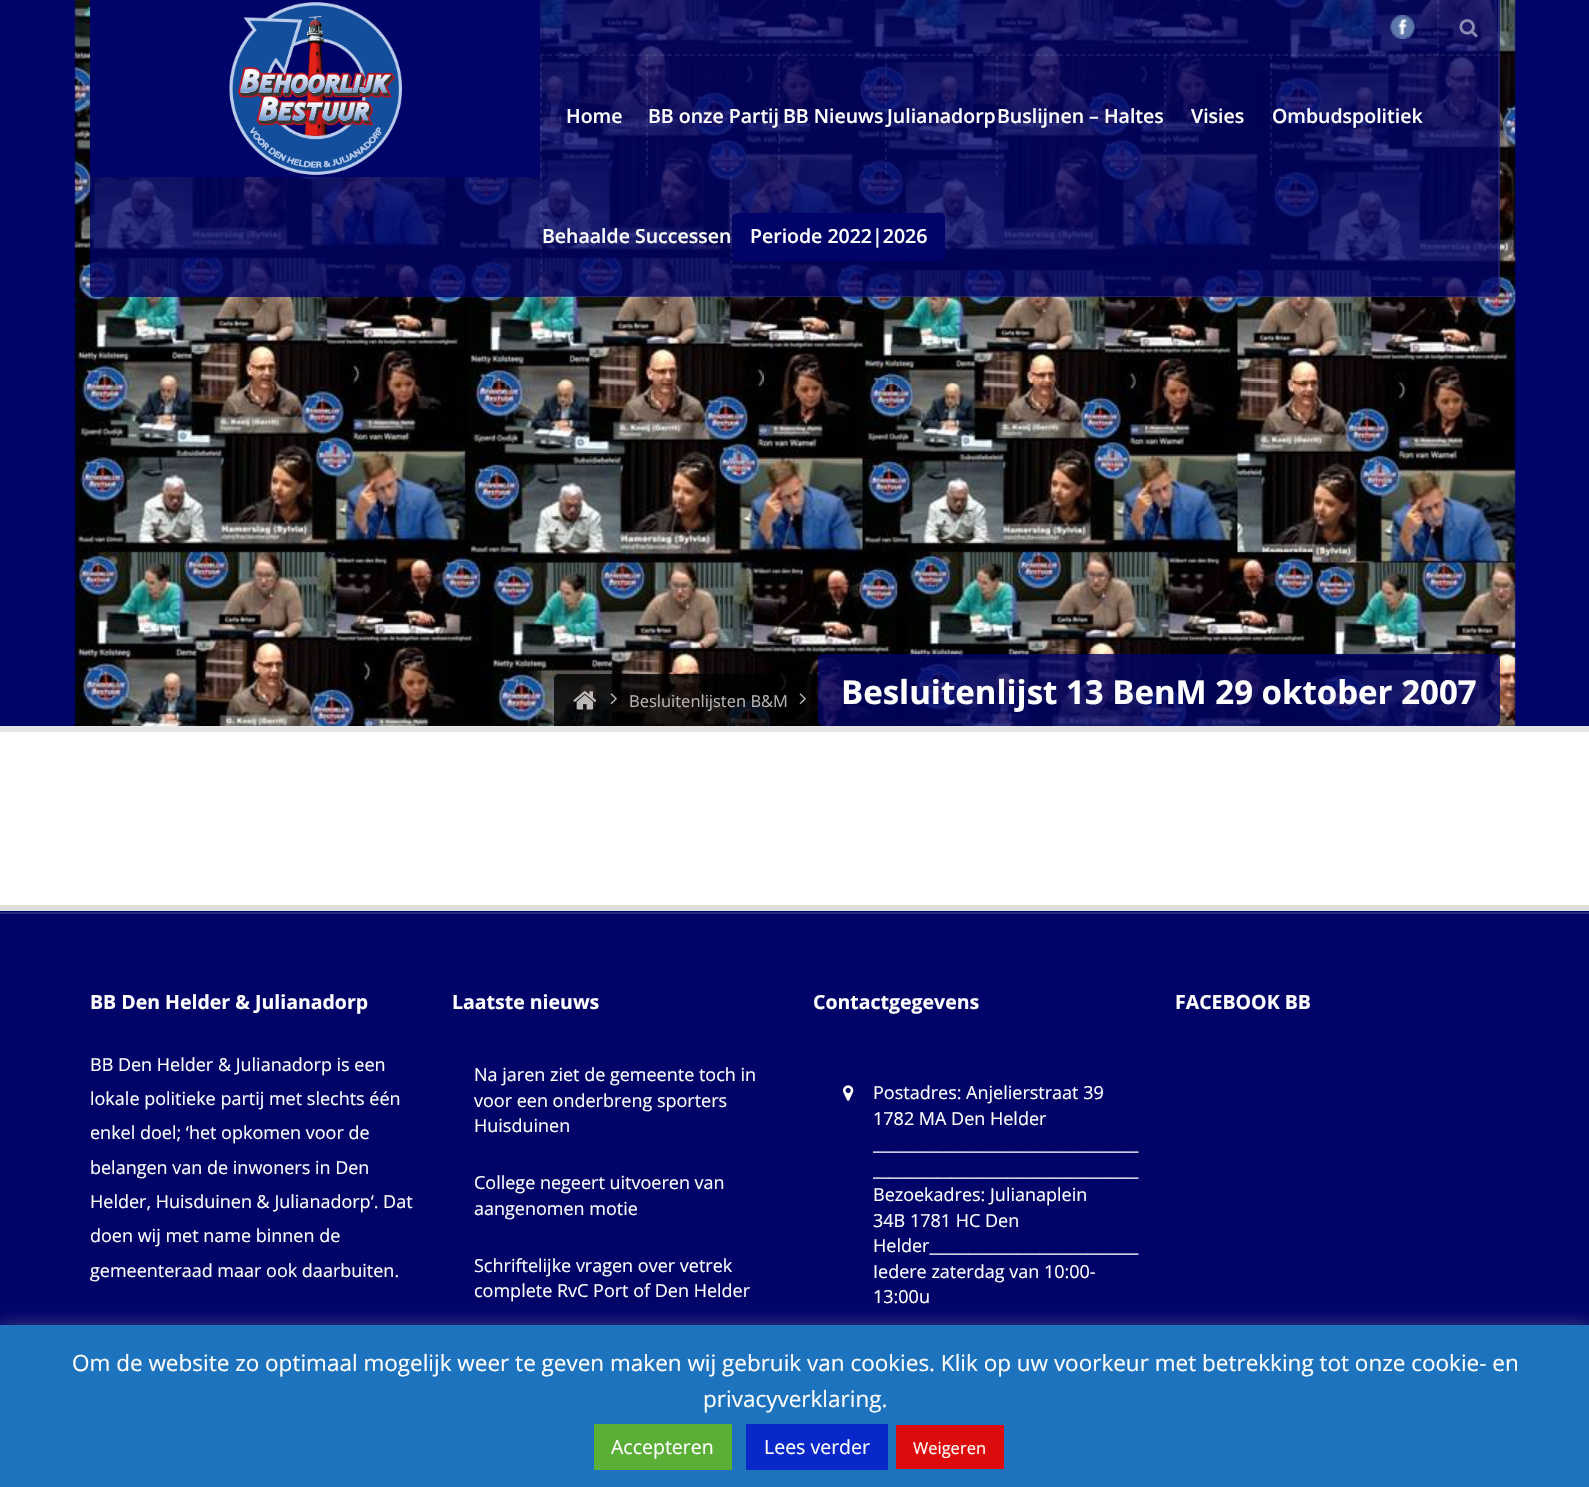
void draw(SkCanvas* canvas) {
    SkPaint paint;
    paint.setAntiAlias(true);
    auto face = [&](const char* family, int weight, float size, bool italic = false) {
        SkFontStyle style(weight, SkFontStyle::kNormal_Width,
            italic ? SkFontStyle::kItalic_Slant : SkFontStyle::kUpright_Slant);
        SkFont result(fontMgr->matchFamilyStyle(family, style), size);
        result.setSubpixel(true);
        return result;
    };
    auto write = [&](const char* s, float x, float y, const SkFont& font, SkColor color) {
        SkPaint ink(SkColor4f::FromColor(color));
        ink.setAntiAlias(true);
        canvas->drawString(s, x, y, font, ink);
    };
    auto block = [&](float x, float y, float w, float h, SkColor color) {
        SkPaint ink(SkColor4f::FromColor(color));
        ink.setAntiAlias(true);
        canvas->drawRect(SkRect::MakeXYWH(x, y, w, h), ink);
    };
    auto card = [&](float x, float y, float w, float h, float radius, SkColor color) {
        SkPaint ink(SkColor4f::FromColor(color));
        ink.setAntiAlias(true);
        canvas->drawRoundRect(SkRect::MakeXYWH(x, y, w, h), radius, radius, ink);
    };
    auto paste = [&](const char* path, float x, float y, float w, float h) {
        auto image = SkImages::DeferredFromEncodedData(SkData::MakeFromFileName(path));
        canvas->drawImageRect(image, SkRect::MakeXYWH(x, y, w, h), SkSamplingOptions());
    };
    canvas->clear(SK_ColorWHITE);
    block(0, 0, 1589, 726, SkColorSetRGB(0, 3, 104));
    paste("pic4.png", 74, 0, 1442, 726);
    paint.setColor(SkColorSetARGB(204, 0, 3, 104));
    canvas->drawPath(SkPathBuilder().moveTo(90, 0).lineTo(1500, 0).lineTo(1500, 292).cubicTo(1500, 295, 1498, 297, 1495, 297).lineTo(95, 297).cubicTo(92, 297, 90, 295, 90, 292).close().detach(), paint);
    paint.setColor(SkColorSetRGB(0, 3, 104));
    canvas->drawPath(SkPathBuilder().moveTo(90, 0).lineTo(540, 0).lineTo(540, 177).lineTo(95, 177).cubicTo(92, 177, 90, 175, 90, 172).close().detach(), paint);
    paste("pic1.png", 229, 2, 173, 173);
    paint.setColor(SkColorSetARGB(26, 255, 255, 255));
    canvas->drawPath(SkPathBuilder(SkPathFillType::kEvenOdd).moveTo(540, 0).lineTo(1500, 0).lineTo(1500, 292).cubicTo(1500, 295, 1498, 297, 1496, 297).lineTo(540, 297).close().moveTo(540, 0).lineTo(1498, 0).lineTo(1498, 292).cubicTo(1498, 294, 1497, 296, 1496, 296).lineTo(540, 296).close().detach(), paint);
    paint.setStyle(SkPaint::kStroke_Style);
    paint.setStrokeWidth(1.5f);
    paint.setPathEffect(SkDashPathEffect::Make({{4.5f, 3.01f}}, 0));
    canvas->drawPath(SkPathBuilder().moveTo(540, 55).lineTo(1498.5f, 55).detach(), paint);
    paint.setPathEffect(nullptr);
    paste("pic2.png", 1390, 15, 25, 24);
    paint.setPathEffect(SkDashPathEffect::Make({{4.5f, 2.79f}}, 0));
    canvas->drawPath(SkPathBuilder().moveTo(1438, 0).lineTo(1438, 55.5f).detach(), paint);
    paint.setPathEffect(nullptr);
    paste("pic3.png", 1459, 19, 19, 19);
    paint.setPathEffect(SkDashPathEffect::Make({{4.5f, 3.19f}}, 0));
    canvas->drawPath(SkPathBuilder().moveTo(541, 55.5f).lineTo(541, 175.5f).detach(), paint);
    paint.setPathEffect(nullptr);
    auto kFont1 = face("Open Sans", 600, 19.5f);
    write("Home", 566, 123, kFont1, SK_ColorWHITE);
    paint.setPathEffect(SkDashPathEffect::Make({{4.5f, 3.19f}}, 0));
    canvas->drawPath(SkPathBuilder().moveTo(647, 55.5f).lineTo(647, 175.5f).detach(), paint);
    paint.setPathEffect(nullptr);
    write("BB onze Partij", 648, 123, kFont1, SK_ColorWHITE);
    paint.setPathEffect(SkDashPathEffect::Make({{4.5f, 3.19f}}, 0));
    canvas->drawPath(SkPathBuilder().moveTo(779, 55.5f).lineTo(779, 175.5f).detach(), paint);
    paint.setPathEffect(nullptr);
    write("BB Nieuws", 783, 123, kFont1, SK_ColorWHITE);
    paint.setPathEffect(SkDashPathEffect::Make({{4.5f, 3.19f}}, 0));
    canvas->drawPath(SkPathBuilder().moveTo(886, 55.5f).lineTo(886, 175.5f).detach(), paint);
    paint.setPathEffect(nullptr);
    write("Julianadorp", 887, 123, kFont1, SK_ColorWHITE);
    paint.setPathEffect(SkDashPathEffect::Make({{4.5f, 3.19f}}, 0));
    canvas->drawPath(SkPathBuilder().moveTo(997, 55.5f).lineTo(997, 175.5f).detach(), paint);
    paint.setPathEffect(nullptr);
    write("Buslijnen – Haltes", 997, 123, kFont1, SK_ColorWHITE);
    paint.setPathEffect(SkDashPathEffect::Make({{4.5f, 3.19f}}, 0));
    canvas->drawPath(SkPathBuilder().moveTo(1165, 55.5f).lineTo(1165, 175.5f).detach(), paint);
    paint.setPathEffect(nullptr);
    write("Visies", 1191, 123, kFont1, SK_ColorWHITE);
    paint.setPathEffect(SkDashPathEffect::Make({{4.5f, 3.19f}}, 0));
    canvas->drawPath(SkPathBuilder().moveTo(1271, 55.5f).lineTo(1271, 175.5f).detach(), paint);
    paint.setPathEffect(nullptr);
    write("Ombudspolitiek", 1272, 123, kFont1, SK_ColorWHITE);
    paint.setPathEffect(SkDashPathEffect::Make({{4.5f, 3.19f}}, 0));
    canvas->drawPath(SkPathBuilder().moveTo(541, 175.5f).lineTo(541, 295.5f).detach(), paint);
    paint.setPathEffect(nullptr);
    write("Behaalde Successen", 542, 243, kFont1, SK_ColorWHITE);
    paint.setPathEffect(SkDashPathEffect::Make({{4.5f, 3.19f}}, 0));
    canvas->drawPath(SkPathBuilder().moveTo(731, 175.5f).lineTo(731, 295.5f).detach(), paint);
    paint.setPathEffect(nullptr);
    card(732, 213, 213, 48, 5, SkColorSetRGB(0, 3, 104));
    write("Periode 2022|2026", 750, 243, kFont1, SK_ColorWHITE);
    paint.setStyle(SkPaint::kFill_Style);
    paint.setColor(SkColorSetARGB(204, 0, 0, 0));
    canvas->drawPath(SkPathBuilder().moveTo(559, 674).lineTo(818, 674).lineTo(818, 726).lineTo(554, 726).lineTo(554, 679).cubicTo(554, 676, 556, 674, 559, 674).close().detach(), paint);
    paste("pic5.png", 573, 691, 24, 19);
    paste("pic6.png", 610, 693, 7, 12);
    auto kFont2 = face("Open Sans", 400, 16.5f);
    write("Besluitenlijsten B&M", 629, 707, kFont2, SkColorSetRGB(183, 182, 182));
    paste("pic7.png", 799, 693, 7, 12);
    card(818, 654, 682, 72, 5, SkColorSetARGB(204, 0, 3, 104));
    auto kFont3 = face("Open Sans", 700, 33);
    write("Besluitenlijst 13 BenM 29 oktober 2007", 841, 704, kFont3, SK_ColorWHITE);
    block(0, 726, 1589, 6, SkColorSetRGB(230, 230, 230));
    block(0, 905, 1589, 6, SkColorSetRGB(222, 222, 222));
    block(0, 911, 1589, 414, SkColorSetRGB(0, 3, 104));
    block(0, 912, 1589, 2, SkColorSetRGB(38, 41, 127));
    auto kFont4 = face("Open Sans", 700, 19.5f);
    write("BB Den Helder & Julianadorp", 90, 1009, kFont4, SK_ColorWHITE);
    auto kFont5 = face("Open Sans", 400, 18);
    write("BB Den Helder & Julianadorp is een", 90, 1071, kFont5, SK_ColorWHITE);
    write("lokale politieke partij met slechts één", 90, 1105, kFont5, SK_ColorWHITE);
    write("enkel doel; ‘het opkomen voor de", 90, 1139, kFont5, SK_ColorWHITE);
    write("belangen van de inwoners in Den", 90, 1174, kFont5, SK_ColorWHITE);
    write("Helder, Huisduinen & Julianadorp‘. Dat", 90, 1208, kFont5, SK_ColorWHITE);
    write("doen wij met name binnen de", 90, 1242, kFont5, SK_ColorWHITE);
    write("gemeenteraad maar ook daarbuiten.", 90, 1277, kFont5, SK_ColorWHITE);
    write("Laatste nieuws", 452, 1009, kFont4, SK_ColorWHITE);
    write("Na jaren ziet de gemeente toch in", 474, 1081, kFont5, SK_ColorWHITE);
    write("voor een onderbreng sporters", 474, 1107, kFont5, SK_ColorWHITE);
    write("Huisduinen", 474, 1132, kFont5, SK_ColorWHITE);
    write("College negeert uitvoeren van", 474, 1189, kFont5, SK_ColorWHITE);
    write("aangenomen motie", 474, 1215, kFont5, SK_ColorWHITE);
    write("Schriftelijke vragen over vetrek", 474, 1272, kFont5, SK_ColorWHITE);
    write("complete RvC Port of Den Helder", 474, 1297, kFont5, SK_ColorWHITE);
    write("Contactgegevens", 813, 1009, kFont4, SK_ColorWHITE);
    paste("pic8.png", 843, 1085, 11, 16);
    write("Postadres: Anjelierstraat 39", 873, 1099, kFont5, SK_ColorWHITE);
    write("1782 MA Den Helder", 873, 1125, kFont5, SK_ColorWHITE);
    canvas->save();
    canvas->clipPath(SkPathBuilder().moveTo(817.5f, 1045.5f).lineTo(1134, 1045.5f).cubicTo(1136.5f, 1045.5f, 1138.5f, 1047.5f, 1138.5f, 1050).lineTo(1138.5f, 1419).cubicTo(1138.5f, 1420.5f, 1136.5f, 1422, 1134, 1422).lineTo(817.5f, 1422).cubicTo(815, 1422, 813, 1420.5f, 813, 1419).lineTo(813, 1050).cubicTo(813, 1047.5f, 815, 1045.5f, 817.5f, 1045.5f).close().detach(), true);
    write("__________________________________", 873, 1150, kFont5, SK_ColorWHITE);
    write("__________________________________", 873, 1176, kFont5, SK_ColorWHITE);
    canvas->restore();
    write("Bezoekadres: Julianaplein", 873, 1201, kFont5, SK_ColorWHITE);
    write("34B 1781 HC Den", 873, 1227, kFont5, SK_ColorWHITE);
    canvas->save();
    canvas->clipPath(SkPathBuilder().moveTo(817.5f, 1045.5f).lineTo(1134, 1045.5f).cubicTo(1136.5f, 1045.5f, 1138.5f, 1047.5f, 1138.5f, 1050).lineTo(1138.5f, 1419).cubicTo(1138.5f, 1420.5f, 1136.5f, 1422, 1134, 1422).lineTo(817.5f, 1422).cubicTo(815, 1422, 813, 1420.5f, 813, 1419).lineTo(813, 1050).cubicTo(813, 1047.5f, 815, 1045.5f, 817.5f, 1045.5f).close().detach(), true);
    write("Helder___________________________", 873, 1252, kFont5, SK_ColorWHITE);
    canvas->restore();
    write("Iedere zaterdag van 10:00-", 873, 1278, kFont5, SK_ColorWHITE);
    write("13:00u", 873, 1303, kFont5, SK_ColorWHITE);
    write("FACEBOOK BB", 1175, 1009, kFont4, SK_ColorWHITE);
    paint.setColor(SkColorSetARGB(77, 172, 171, 171));
    paint.setMaskFilter(SkMaskFilter::MakeBlur(kNormal_SkBlurStyle, 7.5f));
    canvas->drawRect(SkRect::MakeXYWH(0, 1323, 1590, 164), paint);
    paint.setMaskFilter(nullptr);
    block(0, 1325, 1589, 162, SkColorSetRGB(30, 115, 190));
    auto kFont6 = face("Open Sans", 400, 22.5f);
    write("Om de website zo optimaal mogelijk weer te geven maken wij gebruik van cookies. Klik op uw voorkeur met betrekking tot onze cookie- en", 72, 1371, kFont6, SK_ColorWHITE);
    write("privacyverklaring.", 703, 1407, kFont6, SK_ColorWHITE);
    block(594, 1424, 138, 46, SkColorSetRGB(92, 175, 54));
    auto kFont7 = face("Open Sans", 400, 19.5f);
    write("Accepteren", 611, 1454, kFont7, SK_ColorWHITE);
    block(746, 1424, 142, 46, SkColorSetRGB(8, 40, 201));
    write("Lees verder", 764, 1454, kFont7, SK_ColorWHITE);
    block(896, 1425, 108, 44, SkColorSetRGB(221, 11, 11));
    write("Weigeren", 913, 1454, kFont2, SK_ColorWHITE);
}
